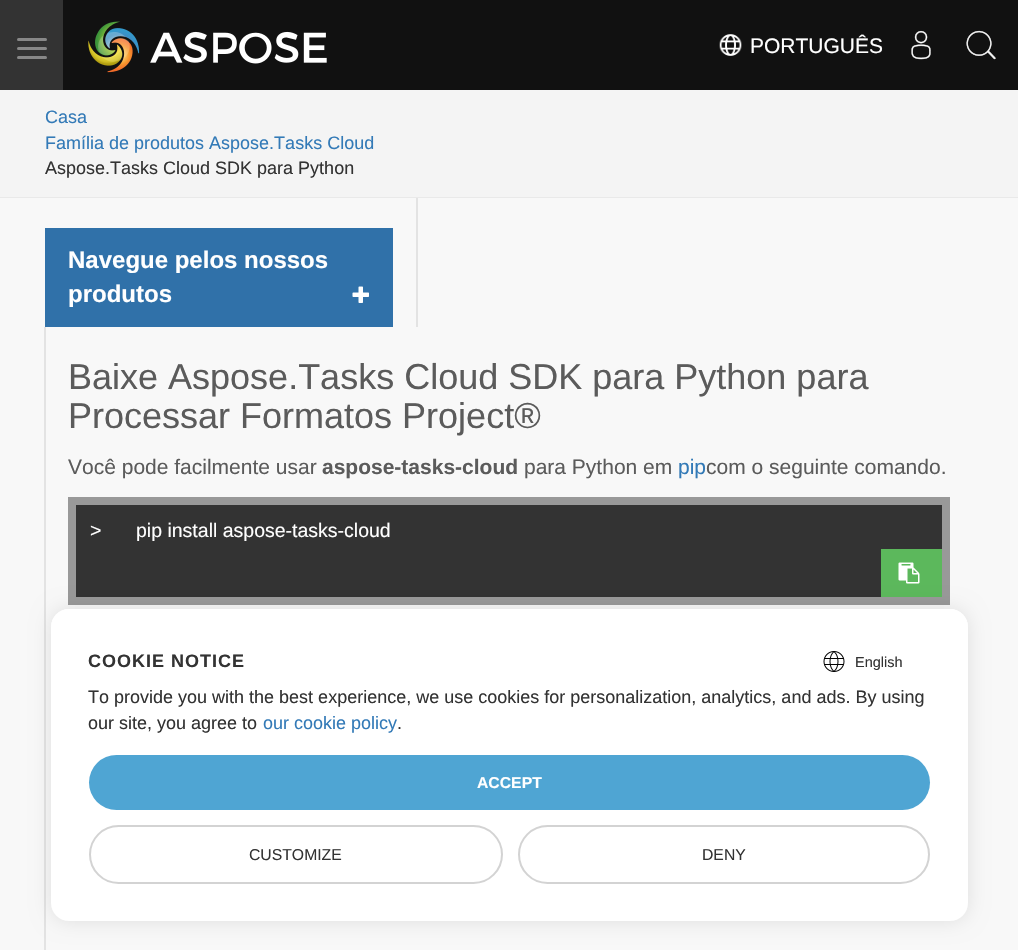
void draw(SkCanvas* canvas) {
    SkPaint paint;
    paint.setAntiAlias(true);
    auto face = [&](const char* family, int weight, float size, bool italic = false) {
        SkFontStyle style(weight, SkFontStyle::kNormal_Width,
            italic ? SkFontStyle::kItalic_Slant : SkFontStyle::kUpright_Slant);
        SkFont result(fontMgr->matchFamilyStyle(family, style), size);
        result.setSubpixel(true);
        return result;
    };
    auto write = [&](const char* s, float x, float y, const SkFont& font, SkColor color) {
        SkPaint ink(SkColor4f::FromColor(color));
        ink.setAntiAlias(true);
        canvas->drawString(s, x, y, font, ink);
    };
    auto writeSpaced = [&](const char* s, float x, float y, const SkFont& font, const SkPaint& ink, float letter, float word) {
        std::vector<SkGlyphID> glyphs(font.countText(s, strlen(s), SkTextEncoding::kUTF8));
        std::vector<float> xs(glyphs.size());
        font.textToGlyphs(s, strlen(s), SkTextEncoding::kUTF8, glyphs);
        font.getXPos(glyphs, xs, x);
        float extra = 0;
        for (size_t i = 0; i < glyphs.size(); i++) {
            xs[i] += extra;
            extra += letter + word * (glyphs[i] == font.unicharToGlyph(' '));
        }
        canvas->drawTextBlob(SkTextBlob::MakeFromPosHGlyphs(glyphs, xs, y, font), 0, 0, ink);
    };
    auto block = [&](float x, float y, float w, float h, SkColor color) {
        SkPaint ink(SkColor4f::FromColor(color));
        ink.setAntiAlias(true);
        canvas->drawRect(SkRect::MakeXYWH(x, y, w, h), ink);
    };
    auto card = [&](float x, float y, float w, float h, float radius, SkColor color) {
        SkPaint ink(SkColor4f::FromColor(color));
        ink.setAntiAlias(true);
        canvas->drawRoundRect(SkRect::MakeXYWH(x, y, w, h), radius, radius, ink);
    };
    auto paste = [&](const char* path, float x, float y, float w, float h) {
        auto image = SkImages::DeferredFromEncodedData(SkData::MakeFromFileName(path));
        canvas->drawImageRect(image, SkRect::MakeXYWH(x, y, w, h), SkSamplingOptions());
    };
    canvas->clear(SkColorSetRGB(244, 244, 244));
    block(63, 0, 955, 90, SkColorSetRGB(17, 17, 17));
    block(0, 0, 63, 90, SkColorSetRGB(51, 51, 51));
    card(17, 38, 30, 3, 1.5f, SkColorSetRGB(136, 136, 136));
    card(17, 47, 30, 3, 1.5f, SkColorSetRGB(136, 136, 136));
    card(17, 56, 30, 3, 1.5f, SkColorSetRGB(136, 136, 136));
    paste("pic1.png", 88, 21, 239, 52);
    paste("pic2.png", 719, 34, 23, 22);
    auto kFont1 = face("Liberation Sans", 400, 21);
    write("PORTUGUÊS", 750, 53, kFont1, SK_ColorWHITE);
    paste("pic3.png", 911, 30, 20, 30);
    paste("pic4.png", 966, 30, 30, 30);
    block(0, 197, 1018, 1, SkColorSetRGB(233, 233, 233));
    auto kFont2 = face("Liberation Sans", 400, 18);
    write("Casa", 45, 123, kFont2, SkColorSetRGB(51, 122, 183));
    write("Família de produtos Aspose.Tasks Cloud", 45, 149, kFont2, SkColorSetRGB(51, 122, 183));
    write("Aspose.Tasks Cloud SDK para Python", 45, 174, kFont2, SkColorSetRGB(51, 51, 51));
    block(0, 198, 1018, 752, SkColorSetRGB(248, 248, 248));
    block(416, 198, 2, 129, SkColorSetRGB(227, 227, 227));
    block(45, 228, 348, 99, SkColorSetRGB(48, 113, 169));
    auto kFont3 = face("Liberation Sans", 700, 24);
    write("Navegue pelos nossos", 68, 268, kFont3, SK_ColorWHITE);
    write("produtos", 68, 302, kFont3, SK_ColorWHITE);
    paste("pic5.png", 352, 286, 17, 17);
    block(44, 327, 2, 623, SkColorSetRGB(227, 227, 227));
    auto kFont4 = face("Liberation Sans", 400, 36);
    write("Baixe Aspose.Tasks Cloud SDK para Python para", 68, 389, kFont4, SkColorSetRGB(91, 91, 91));
    write("Processar Formatos Project®", 68, 428, kFont4, SkColorSetRGB(91, 91, 91));
    write("Você pode facilmente usar", 68, 474, kFont1, SkColorSetRGB(91, 91, 91));
    auto kFont5 = face("Liberation Sans", 700, 21);
    write("aspose-tasks-cloud", 322, 474, kFont5, SkColorSetRGB(91, 91, 91));
    write("para Python em", 524, 474, kFont1, SkColorSetRGB(91, 91, 91));
    write("pip", 678, 474, kFont1, SkColorSetRGB(51, 122, 183));
    write("com o seguinte comando.", 706, 474, kFont1, SkColorSetRGB(91, 91, 91));
    paint.setColor(SkColorSetRGB(51, 51, 51));
    canvas->drawRect(SkRect::MakeXYWH(72, 501, 874, 100), paint);
    paint.setStyle(SkPaint::kStroke_Style);
    paint.setStrokeWidth(8);
    paint.setColor(SkColorSetRGB(153, 153, 153));
    canvas->drawRect(SkRect::MakeXYWH(72, 501, 874, 100), paint);
    auto kFont6 = face("Liberation Sans", 400, 19.5f);
    write(">", 90, 537, kFont6, SK_ColorWHITE);
    write("pip install aspose-tasks-cloud", 136, 537, kFont6, SK_ColorWHITE);
    block(881, 549, 61, 48, SkColorSetRGB(92, 184, 92));
    paste("pic6.png", 898, 562, 22, 22);
    paint.setStyle(SkPaint::kFill_Style);
    paint.setColor(SkColorSetARGB(26, 0, 0, 0));
    paint.setMaskFilter(SkMaskFilter::MakeBlur(kNormal_SkBlurStyle, 10));
    canvas->drawRoundRect(SkRect::MakeXYWH(51, 609, 917, 312), 18, 18, paint);
    paint.setMaskFilter(nullptr);
    card(51, 609, 917, 312, 18, SK_ColorWHITE);
    paint.setColor(SK_ColorWHITE);
    canvas->drawPath(SkPathBuilder().moveTo(69, 609).lineTo(950, 609).cubicTo(960, 609, 968, 617, 968, 627).lineTo(968, 678).lineTo(51, 678).lineTo(51, 627).cubicTo(51, 617, 59, 609, 69, 609).close().detach(), paint);
    auto kFont7 = face("Liberation Sans", 700, 18);
    paint.setColor(SkColorSetRGB(51, 51, 51));
    writeSpaced("COOKIE NOTICE", 88, 667, kFont7, paint, 1, 0);
    paste("pic7.png", 823, 651, 22, 21);
    auto kFont8 = face("Liberation Sans", 400, 14.5f);
    write("English", 855, 667, kFont8, SkColorSetRGB(51, 51, 51));
    write("To provide you with the best experience, we use cookies for personalization, analytics, and ads. By using", 88, 703, kFont2, SkColorSetRGB(51, 51, 51));
    write("our site, you agree to", 88, 729, kFont2, SkColorSetRGB(51, 51, 51));
    write("our cookie policy", 263, 729, kFont2, SkColorSetRGB(51, 122, 183));
    write(".", 397, 729, kFont2, SkColorSetRGB(51, 51, 51));
    card(89, 755, 841, 55, 27.5f, SkColorSetRGB(79, 165, 211));
    auto kFont9 = face("Liberation Sans", 700, 15.75f);
    write("ACCEPT", 477, 788, kFont9, SK_ColorWHITE);
    paint.setStyle(SkPaint::kStroke_Style);
    paint.setStrokeWidth(2);
    paint.setColor(SkColorSetRGB(211, 211, 211));
    canvas->drawRoundRect(SkRect::MakeXYWH(90, 826, 412, 57), 28.5f, 28.5f, paint);
    auto kFont10 = face("Liberation Sans", 400, 15.75f);
    write("CUSTOMIZE", 249, 860, kFont10, SkColorSetRGB(51, 51, 51));
    canvas->drawRoundRect(SkRect::MakeXYWH(519, 826, 410, 57), 28.5f, 28.5f, paint);
    write("DENY", 702, 860, kFont10, SkColorSetRGB(51, 51, 51));
}
